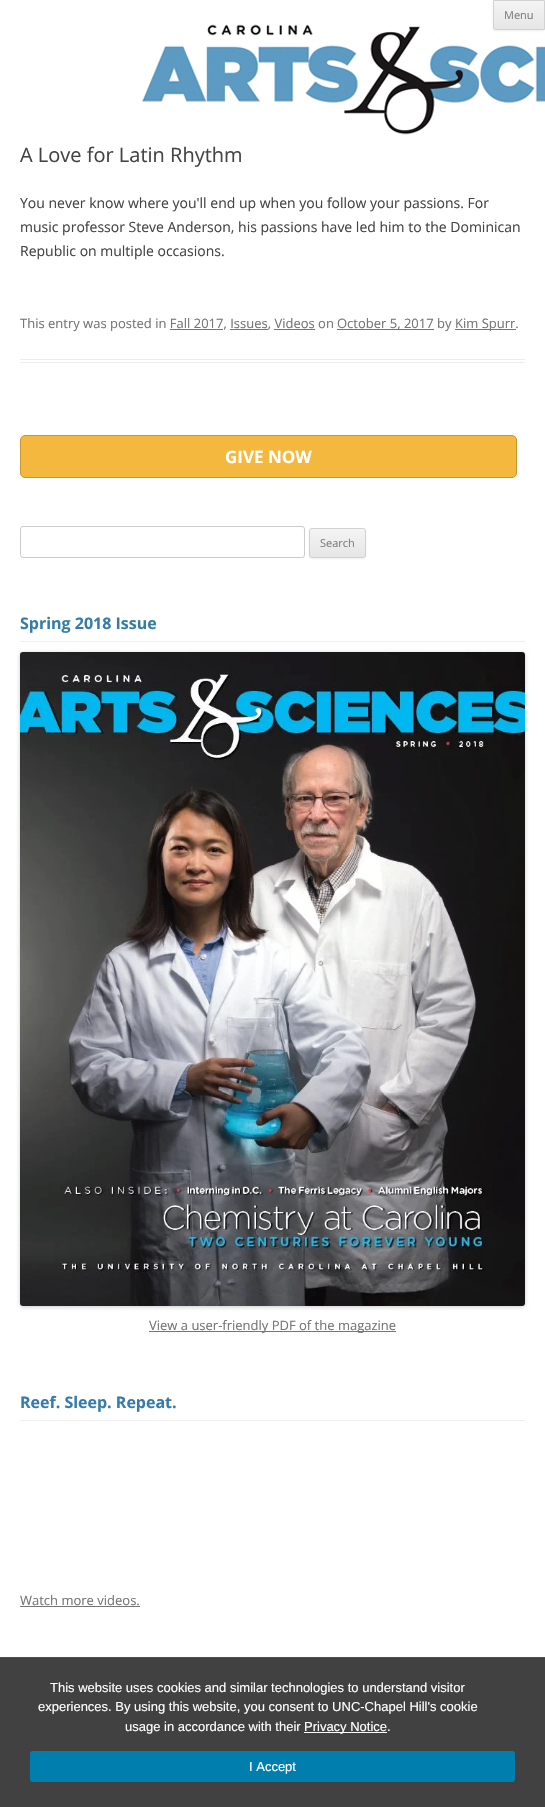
void draw(SkCanvas* canvas) {
    SkPaint paint;
    paint.setAntiAlias(true);
    auto face = [&](const char* family, int weight, float size, bool italic = false) {
        SkFontStyle style(weight, SkFontStyle::kNormal_Width,
            italic ? SkFontStyle::kItalic_Slant : SkFontStyle::kUpright_Slant);
        SkFont result(fontMgr->matchFamilyStyle(family, style), size);
        result.setSubpixel(true);
        return result;
    };
    auto write = [&](const char* s, float x, float y, const SkFont& font, SkColor color) {
        SkPaint ink(SkColor4f::FromColor(color));
        ink.setAntiAlias(true);
        canvas->drawString(s, x, y, font, ink);
    };
    auto block = [&](float x, float y, float w, float h, SkColor color) {
        SkPaint ink(SkColor4f::FromColor(color));
        ink.setAntiAlias(true);
        canvas->drawRect(SkRect::MakeXYWH(x, y, w, h), ink);
    };
    auto card = [&](float x, float y, float w, float h, float radius, SkColor color) {
        SkPaint ink(SkColor4f::FromColor(color));
        ink.setAntiAlias(true);
        canvas->drawRoundRect(SkRect::MakeXYWH(x, y, w, h), radius, radius, ink);
    };
    auto paste = [&](const char* path, float x, float y, float w, float h) {
        auto image = SkImages::DeferredFromEncodedData(SkData::MakeFromFileName(path));
        canvas->drawImageRect(image, SkRect::MakeXYWH(x, y, w, h), SkSamplingOptions());
    };
    canvas->clear(SK_ColorWHITE);
    paste("pic1.png", 142, 24, 403, 111);
    paint.setColor(SkColorSetARGB(26, 64, 64, 64));
    paint.setMaskFilter(SkMaskFilter::MakeBlur(kNormal_SkBlurStyle, 1));
    canvas->drawRoundRect(SkRect::MakeXYWH(493, 1, 52, 30), 3, 3, paint);
    paint.setMaskFilter(nullptr);
    {
        const SkColor colors[] = {SkColorSetRGB(244, 244, 244), SkColorSetRGB(230, 230, 230)};
        const float stops[] = {0, 1};
        const SkPoint ends[] = {{519, 1}, {519, 29}};
        paint.setShader(SkGradientShader::MakeLinear(ends, colors, stops, 2, SkTileMode::kClamp));
        paint.setAlpha(255);
    }
    canvas->drawRect(SkRect::MakeXYWH(493, 1, 51, 28), paint);
    paint.setStyle(SkPaint::kStroke_Style);
    paint.setStrokeWidth(1);
    paint.setShader(nullptr);
    paint.setColor(SkColorSetRGB(210, 210, 210));
    canvas->drawPath(SkPathBuilder().moveTo(493.5f, 0.5f).lineTo(544.5f, 0.5f).lineTo(544.5f, 29.5f).lineTo(496, 29.5f).cubicTo(494.5f, 29.5f, 493.5f, 28.5f, 493.5f, 27).close().detach(), paint);
    auto kFont1 = face("Open Sans", 400, 11);
    write("Menu", 504, 19, kFont1, SkColorSetRGB(124, 124, 124));
    block(20, 359, 505, 1, SkColorSetRGB(237, 237, 237));
    block(20, 362, 505, 1, SkColorSetRGB(237, 237, 237));
    auto kFont2 = face("Open Sans", 400, 20);
    write("A Love for Latin Rhythm", 20, 162, kFont2, SkColorSetRGB(68, 68, 68));
    auto kFont3 = face("Open Sans", 400, 14);
    write("You never know where you'll end up when you follow your passions. For", 20, 208, kFont3, SkColorSetRGB(68, 68, 68));
    write("music professor Steve Anderson, his passions have led him to the Dominican", 20, 232, kFont3, SkColorSetRGB(68, 68, 68));
    write("Republic on multiple occasions.", 20, 256, kFont3, SkColorSetRGB(68, 68, 68));
    auto kFont4 = face("Open Sans", 400, 13);
    write("This entry was posted in Fall 2017, Issues, Videos on", 20, 328, kFont4, SkColorSetRGB(117, 117, 117));
    block(337, 329, 97, 1, SkColorSetRGB(117, 117, 117));
    write("October 5, 2017 by", 337, 328, kFont4, SkColorSetRGB(117, 117, 117));
    block(455, 329, 61, 1, SkColorSetRGB(117, 117, 117));
    write("Kim Spurr.", 455, 328, kFont4, SkColorSetRGB(117, 117, 117));
    block(170, 329, 53, 1, SkColorSetRGB(117, 117, 117));
    block(230, 329, 38, 1, SkColorSetRGB(117, 117, 117));
    block(274, 329, 41, 1, SkColorSetRGB(117, 117, 117));
    paint.setStyle(SkPaint::kFill_Style);
    paint.setColor(SkColorSetRGB(244, 184, 62));
    canvas->drawRoundRect(SkRect::MakeXYWH(20.5f, 435.5f, 496, 42), 4.5f, 4.5f, paint);
    paint.setStyle(SkPaint::kStroke_Style);
    paint.setColor(SkColorSetRGB(201, 149, 46));
    canvas->drawRoundRect(SkRect::MakeXYWH(20.5f, 435.5f, 496, 42), 4.5f, 4.5f, paint);
    auto kFont5 = face("Open Sans", 700, 17);
    write("GIVE NOW", 225, 463, kFont5, SK_ColorWHITE);
    paint.setColor(SkColorSetRGB(204, 204, 204));
    canvas->drawRoundRect(SkRect::MakeXYWH(20.5f, 526.5f, 284, 31), 2.5f, 2.5f, paint);
    paint.setStyle(SkPaint::kFill_Style);
    paint.setColor(SkColorSetARGB(26, 64, 64, 64));
    paint.setMaskFilter(SkMaskFilter::MakeBlur(kNormal_SkBlurStyle, 1));
    canvas->drawRoundRect(SkRect::MakeXYWH(309, 529, 57, 30), 3, 3, paint);
    paint.setMaskFilter(nullptr);
    canvas->save();
    canvas->clipPath(SkPathBuilder().moveTo(312, 528).lineTo(363, 528).cubicTo(364.5f, 528, 366, 529.5f, 366, 531).lineTo(366, 555).cubicTo(366, 556.5f, 364.5f, 558, 363, 558).lineTo(312, 558).cubicTo(310.5f, 558, 309, 556.5f, 309, 555).lineTo(309, 531).cubicTo(309, 529.5f, 310.5f, 528, 312, 528).close().detach(), true);
    {
        const SkColor colors[] = {SkColorSetRGB(244, 244, 244), SkColorSetRGB(230, 230, 230)};
        const float stops[] = {0, 1};
        const SkPoint ends[] = {{338, 529}, {338, 557}};
        paint.setShader(SkGradientShader::MakeLinear(ends, colors, stops, 2, SkTileMode::kClamp));
        paint.setAlpha(255);
    }
    canvas->drawRect(SkRect::MakeXYWH(309, 529, 57, 28), paint);
    canvas->restore();
    paint.setStyle(SkPaint::kStroke_Style);
    paint.setShader(nullptr);
    paint.setColor(SkColorSetRGB(210, 210, 210));
    canvas->drawRoundRect(SkRect::MakeXYWH(309.5f, 528.5f, 56, 29), 2.5f, 2.5f, paint);
    write("Search", 320, 547, kFont1, SkColorSetRGB(124, 124, 124));
    block(20, 641, 505, 1, SkColorSetRGB(239, 239, 239));
    auto kFont6 = face("Open Sans", 700, 16);
    write("Spring 2018 Issue", 20, 629, kFont6, SkColorSetRGB(54, 124, 170));
    paint.setStyle(SkPaint::kFill_Style);
    paint.setColor(SkColorSetARGB(51, 0, 0, 0));
    paint.setMaskFilter(SkMaskFilter::MakeBlur(kNormal_SkBlurStyle, 2));
    canvas->drawRoundRect(SkRect::MakeXYWH(20, 653, 505, 654), 3, 3, paint);
    paint.setMaskFilter(nullptr);
    paste("pic2.png", 20, 652, 505, 654);
    block(149, 1331, 247, 1, SkColorSetRGB(117, 117, 117));
    write("View a user-friendly PDF of the magazine", 149, 1330, kFont4, SkColorSetRGB(117, 117, 117));
    block(20, 1420, 505, 1, SkColorSetRGB(239, 239, 239));
    write("Reef. Sleep. Repeat.", 20, 1408, kFont6, SkColorSetRGB(54, 124, 170));
    write("Watch more videos.", 20, 1605, kFont4, SkColorSetRGB(117, 117, 117));
    block(20, 1606, 120, 1, SkColorSetRGB(117, 117, 117));
    block(0, 1658, 545, 149, SkColorSetRGB(65, 65, 65));
    block(0, 1657, 545, 1, SkColorSetRGB(81, 81, 81));
    auto kFont7 = face("Liberation Sans", 400, 13);
    write("This website uses cookies and similar technologies to understand visitor", 50, 1692, kFont7, SK_ColorWHITE);
    write("experiences. By using this website, you consent to UNC-Chapel Hill's cookie", 38, 1711, kFont7, SK_ColorWHITE);
    write("usage in accordance with their", 125, 1731, kFont7, SK_ColorWHITE);
    block(304, 1732, 83, 1, SK_ColorWHITE);
    write("Privacy Notice.", 304, 1731, kFont7, SK_ColorWHITE);
    card(30, 1751, 485, 31, 3, SkColorSetRGB(0, 127, 174));
    write("I Accept", 249, 1771, kFont7, SK_ColorWHITE);
}
